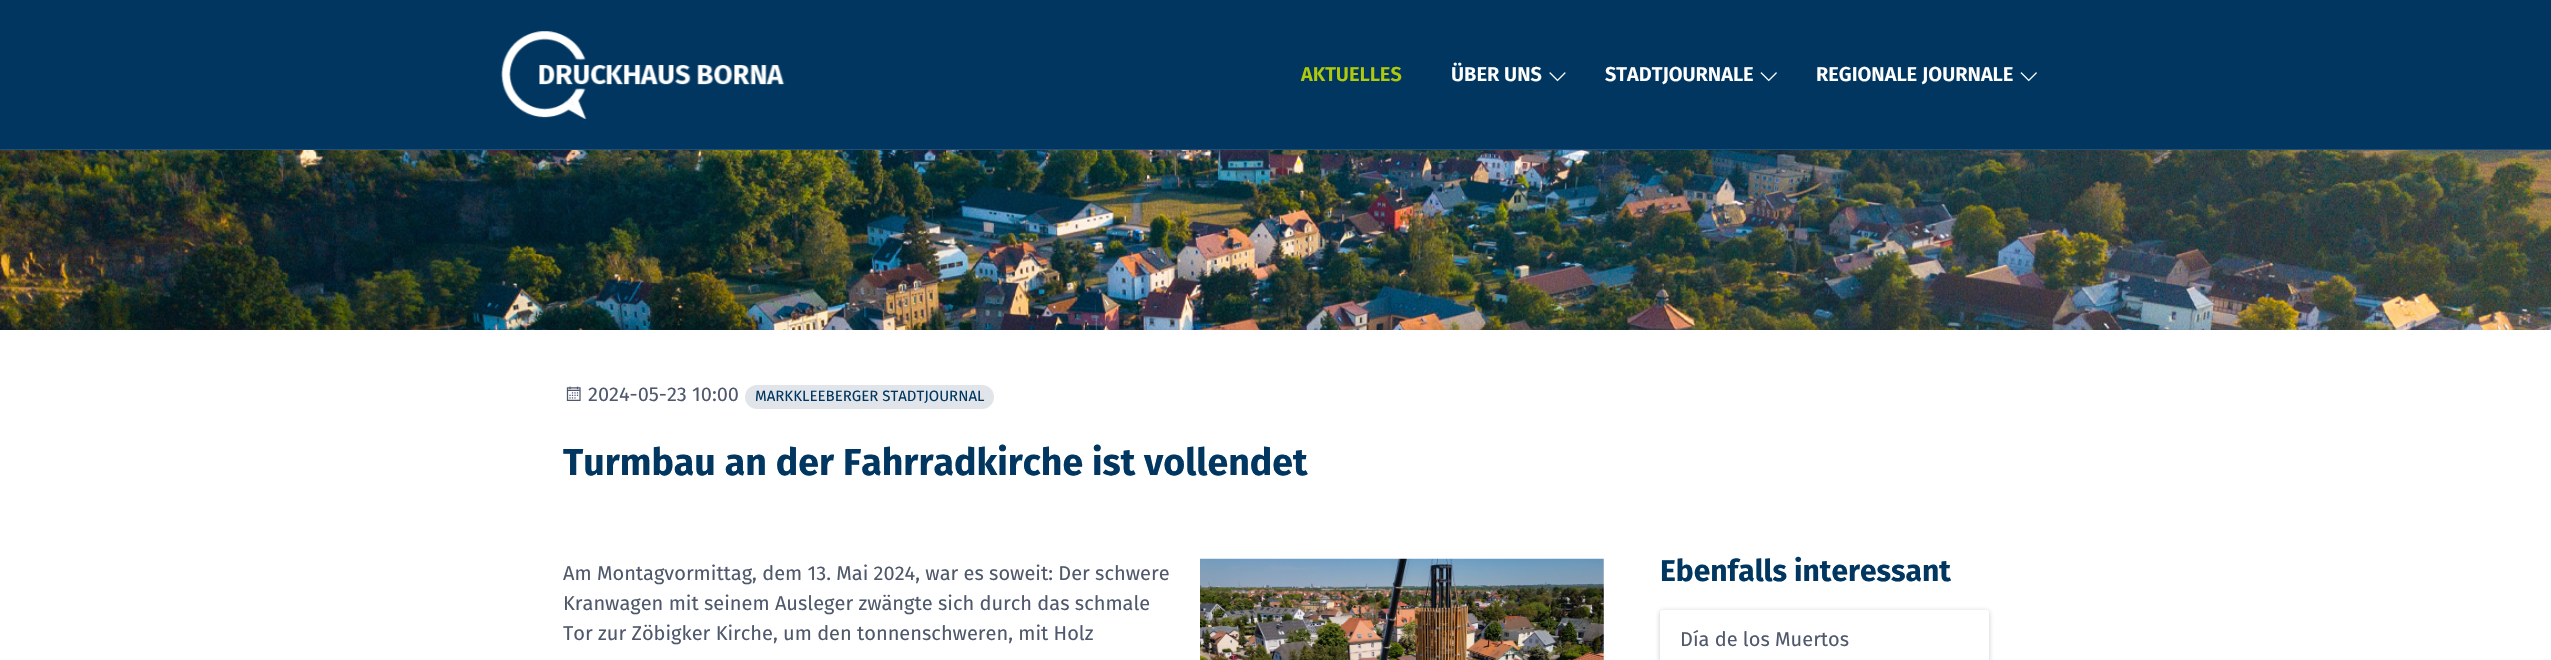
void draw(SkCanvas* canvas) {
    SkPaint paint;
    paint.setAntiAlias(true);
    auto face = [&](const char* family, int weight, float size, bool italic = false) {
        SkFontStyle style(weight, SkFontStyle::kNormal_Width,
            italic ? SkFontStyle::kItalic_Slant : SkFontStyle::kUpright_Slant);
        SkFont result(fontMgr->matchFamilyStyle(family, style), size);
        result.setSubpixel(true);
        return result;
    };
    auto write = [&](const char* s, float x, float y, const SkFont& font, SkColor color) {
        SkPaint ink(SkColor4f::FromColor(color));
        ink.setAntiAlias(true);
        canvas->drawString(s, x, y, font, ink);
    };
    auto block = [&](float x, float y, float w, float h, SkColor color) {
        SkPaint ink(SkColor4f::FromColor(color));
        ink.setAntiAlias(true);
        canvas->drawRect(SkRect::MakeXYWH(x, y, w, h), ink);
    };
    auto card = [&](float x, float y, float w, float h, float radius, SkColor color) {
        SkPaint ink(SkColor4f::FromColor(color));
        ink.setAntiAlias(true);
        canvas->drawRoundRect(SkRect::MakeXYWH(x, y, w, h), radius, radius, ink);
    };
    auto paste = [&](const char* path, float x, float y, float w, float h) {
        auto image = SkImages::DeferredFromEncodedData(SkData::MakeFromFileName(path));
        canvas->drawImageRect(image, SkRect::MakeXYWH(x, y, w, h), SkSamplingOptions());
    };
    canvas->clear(SK_ColorWHITE);
    block(0, 0, 2551, 149, SkColorSetRGB(0, 54, 96));
    block(0, 149, 2551, 1, SkColorSetRGB(34, 79, 116));
    paste("pic1.png", 501, 31, 284, 88);
    auto kFont1 = face("Fira Sans", 600, 20);
    write("AKTUELLES", 1301, 81, kFont1, SkColorSetRGB(175, 202, 10));
    write("ÜBER UNS", 1451, 81, kFont1, SK_ColorWHITE);
    paste("pic2.png", 1549, 72, 17, 10);
    write("STADTJOURNALE", 1605, 81, kFont1, SK_ColorWHITE);
    paste("pic3.png", 1760, 72, 17, 10);
    write("REGIONALE JOURNALE", 1816, 81, kFont1, SK_ColorWHITE);
    paste("pic3.png", 2020, 72, 17, 10);
    paste("pic4.png", 0, 150, 2551, 180);
    paste("pic5.png", 566, 386, 15, 15);
    auto kFont2 = face("Fira Sans", 400, 20);
    write("2024-05-23 10:00", 588, 401, kFont2, SkColorSetRGB(80, 89, 108));
    card(745, 385, 249, 24, 12, SkColorSetRGB(225, 229, 233));
    auto kFont3 = face("Fira Sans", 400, 15);
    write("MARKKLEEBERGER STADTJOURNAL", 755, 401, kFont3, SkColorSetRGB(0, 54, 96));
    auto kFont4 = face("Fira Sans", 700, 37.5f);
    write("Turmbau an der Fahrradkirche ist vollendet", 563, 475, kFont4, SkColorSetRGB(0, 54, 96));
    write("Am Montagvormittag, dem 13. Mai 2024, war es soweit: Der schwere", 563, 580, kFont2, SkColorSetRGB(80, 89, 108));
    paste("pic6.png", 1200, 558, 404, 102);
    write("Kranwagen mit seinem Ausleger zwängte sich durch das schmale", 563, 610, kFont2, SkColorSetRGB(80, 89, 108));
    write("Tor zur Zöbigker Kirche, um den tonnenschweren, mit Holz", 563, 640, kFont2, SkColorSetRGB(80, 89, 108));
    auto kFont5 = face("Fira Sans", 700, 30);
    write("Ebenfalls interessant", 1660, 581, kFont5, SkColorSetRGB(0, 54, 96));
    paint.setColor(SkColorSetARGB(77, 69, 77, 93));
    paint.setMaskFilter(SkMaskFilter::MakeBlur(kNormal_SkBlurStyle, 2.5f));
    canvas->drawRoundRect(SkRect::MakeXYWH(1660, 611, 329, 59), 2.5f, 2.5f, paint);
    paint.setMaskFilter(nullptr);
    card(1660, 610, 329, 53, 2.5f, SK_ColorWHITE);
    write("Día de los Muertos", 1680, 646, kFont2, SkColorSetRGB(80, 89, 108));
}
